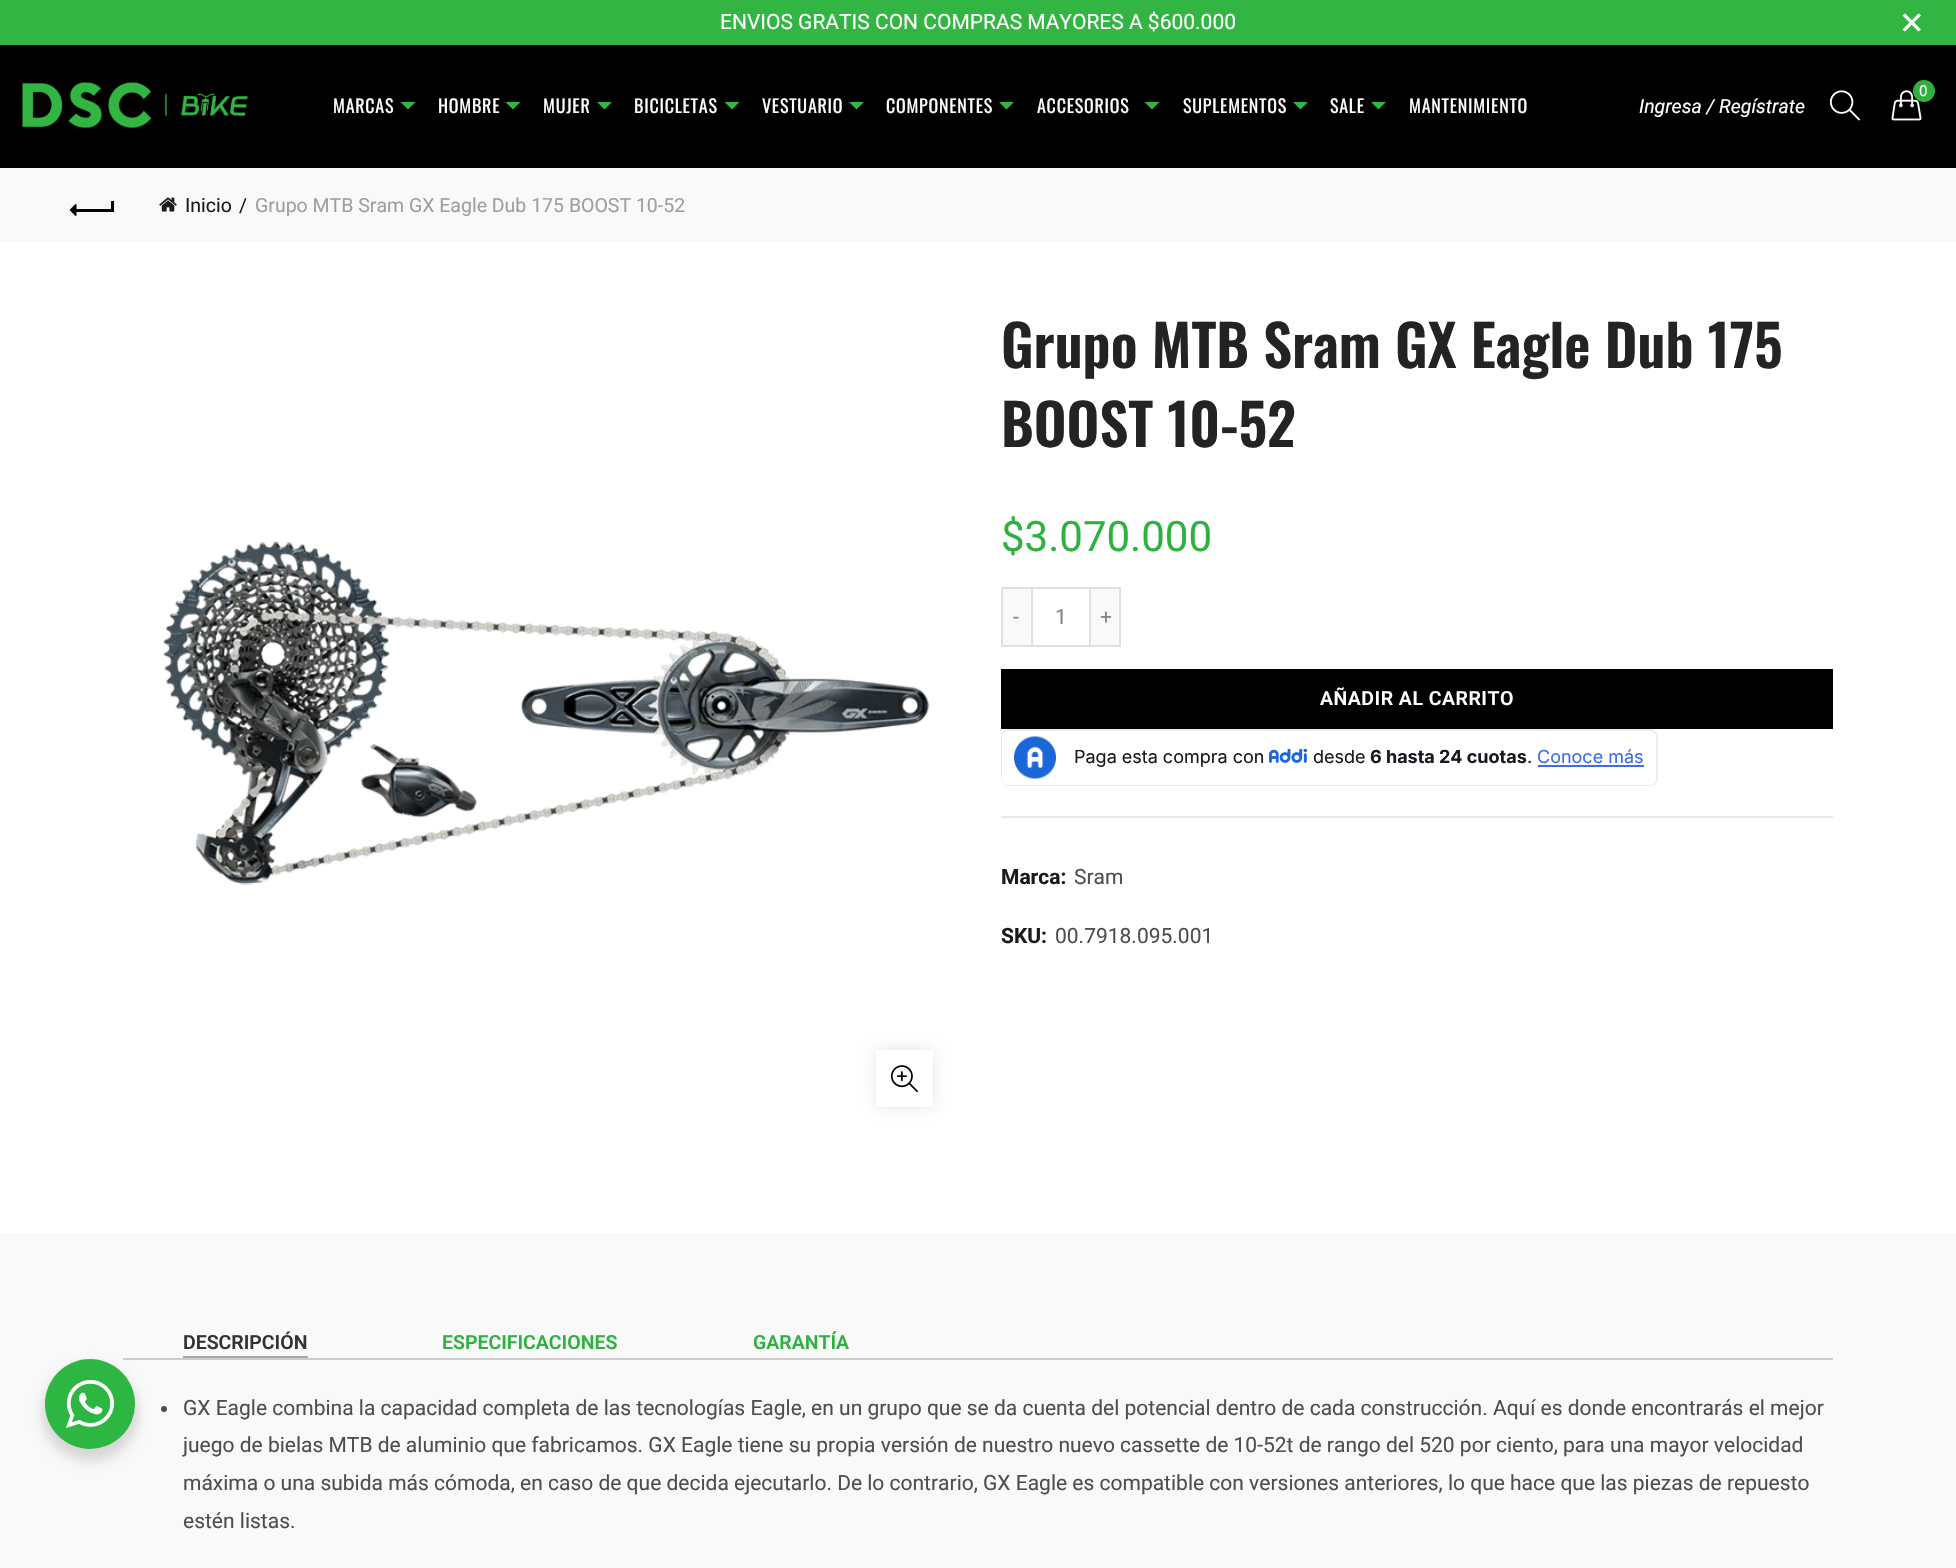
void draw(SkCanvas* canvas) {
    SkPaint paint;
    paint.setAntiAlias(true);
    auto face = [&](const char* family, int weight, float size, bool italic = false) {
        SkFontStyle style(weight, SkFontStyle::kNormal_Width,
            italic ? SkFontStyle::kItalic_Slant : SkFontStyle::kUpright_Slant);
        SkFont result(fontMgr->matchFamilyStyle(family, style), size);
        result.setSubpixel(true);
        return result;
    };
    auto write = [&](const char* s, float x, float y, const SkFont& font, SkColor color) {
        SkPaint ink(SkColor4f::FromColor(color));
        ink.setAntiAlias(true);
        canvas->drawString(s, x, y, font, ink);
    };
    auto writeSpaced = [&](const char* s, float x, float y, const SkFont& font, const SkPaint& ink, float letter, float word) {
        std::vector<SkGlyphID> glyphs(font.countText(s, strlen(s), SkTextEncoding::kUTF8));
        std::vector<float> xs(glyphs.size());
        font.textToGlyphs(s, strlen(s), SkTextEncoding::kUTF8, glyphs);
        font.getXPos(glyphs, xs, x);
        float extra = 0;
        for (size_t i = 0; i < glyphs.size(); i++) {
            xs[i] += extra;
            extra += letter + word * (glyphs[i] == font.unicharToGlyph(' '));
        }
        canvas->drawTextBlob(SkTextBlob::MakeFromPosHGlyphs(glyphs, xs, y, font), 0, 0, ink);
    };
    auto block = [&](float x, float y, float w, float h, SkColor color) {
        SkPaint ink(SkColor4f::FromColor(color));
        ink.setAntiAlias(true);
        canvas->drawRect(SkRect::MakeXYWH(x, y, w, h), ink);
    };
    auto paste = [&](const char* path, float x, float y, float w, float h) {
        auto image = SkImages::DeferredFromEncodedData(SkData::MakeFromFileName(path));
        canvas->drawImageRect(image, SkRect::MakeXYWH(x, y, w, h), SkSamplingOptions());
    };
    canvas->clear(SK_ColorWHITE);
    block(0, 0, 1956, 45, SkColorSetRGB(51, 181, 67));
    auto kFont1 = face("Roboto", 400, 21);
    write("ENVIOS GRATIS CON COMPRAS MAYORES A $600.000", 720, 29, kFont1, SK_ColorWHITE);
    paint.setColor(SK_ColorWHITE);
    canvas->drawPath(SkPathBuilder().moveTo(1905, 13.5f).lineTo(1921, 29.5f).lineTo(1918.5f, 31.5f).lineTo(1902.5f, 15.5f).close().detach(), paint);
    canvas->drawPath(SkPathBuilder().moveTo(1902.5f, 29.5f).lineTo(1918.5f, 13.5f).lineTo(1921, 15.5f).lineTo(1905, 31.5f).close().detach(), paint);
    block(0, 1233, 1956, 335, SkColorSetRGB(249, 249, 249));
    block(123, 1358, 1710, 2, SkColorSetRGB(204, 204, 204));
    paint.setColor(SkColorSetARGB(36, 0, 0, 0));
    paint.setMaskFilter(SkMaskFilter::MakeBlur(kNormal_SkBlurStyle, 6));
    canvas->drawRoundRect(SkRect::MakeXYWH(42, 1365, 96, 96), 48, 48, paint);
    paint.setMaskFilter(nullptr);
    paint.setColor(SkColorSetRGB(45, 183, 66));
    canvas->drawCircle(90, 1404, 45, paint);
    paste("pic1.png", 66, 1380, 48, 48);
    block(0, 45, 1956, 123, SK_ColorBLACK);
    paste("pic2.png", 22, 82, 226, 46);
    auto kFont2 = face("Oswald", 400, 18);
    paint.setColor(SK_ColorWHITE);
    writeSpaced("MARCAS", 333, 113, kFont2, paint, 0.75f, 0);
    paint.setColor(SkColorSetRGB(51, 181, 67));
    canvas->drawPath(SkPathBuilder().moveTo(400.5f, 102).lineTo(415.5f, 102).lineTo(408, 109.5f).close().detach(), paint);
    paint.setColor(SK_ColorWHITE);
    writeSpaced("HOMBRE", 438, 113, kFont2, paint, 0.75f, 0);
    paint.setColor(SkColorSetRGB(51, 181, 67));
    canvas->drawPath(SkPathBuilder().moveTo(505.5f, 102).lineTo(520.5f, 102).lineTo(513, 109.5f).close().detach(), paint);
    paint.setColor(SK_ColorWHITE);
    writeSpaced("MUJER", 543, 113, kFont2, paint, 0.75f, 0);
    paint.setColor(SkColorSetRGB(51, 181, 67));
    canvas->drawPath(SkPathBuilder().moveTo(597, 102).lineTo(612, 102).lineTo(604.5f, 109.5f).close().detach(), paint);
    paint.setColor(SK_ColorWHITE);
    writeSpaced("BICICLETAS", 634, 113, kFont2, paint, 0.75f, 0);
    paint.setColor(SkColorSetRGB(51, 181, 67));
    canvas->drawPath(SkPathBuilder().moveTo(724.5f, 102).lineTo(739.5f, 102).lineTo(732, 109.5f).close().detach(), paint);
    paint.setColor(SK_ColorWHITE);
    writeSpaced("VESTUARIO", 762, 113, kFont2, paint, 0.75f, 0);
    paint.setColor(SkColorSetRGB(51, 181, 67));
    canvas->drawPath(SkPathBuilder().moveTo(849, 102).lineTo(864, 102).lineTo(856.5f, 109.5f).close().detach(), paint);
    paint.setColor(SK_ColorWHITE);
    writeSpaced("COMPONENTES", 886, 113, kFont2, paint, 0.75f, 0);
    paint.setColor(SkColorSetRGB(51, 181, 67));
    canvas->drawPath(SkPathBuilder().moveTo(999, 102).lineTo(1014, 102).lineTo(1006.5f, 109.5f).close().detach(), paint);
    paint.setColor(SK_ColorWHITE);
    writeSpaced("ACCESORIOS", 1037, 113, kFont2, paint, 0.75f, 0);
    paint.setColor(SkColorSetRGB(51, 181, 67));
    canvas->drawPath(SkPathBuilder().moveTo(1144.5f, 102).lineTo(1159.5f, 102).lineTo(1152, 109.5f).close().detach(), paint);
    paint.setColor(SK_ColorWHITE);
    writeSpaced("SUPLEMENTOS", 1183, 113, kFont2, paint, 0.75f, 0);
    paint.setColor(SkColorSetRGB(51, 181, 67));
    canvas->drawPath(SkPathBuilder().moveTo(1293, 102).lineTo(1308, 102).lineTo(1300.5f, 109.5f).close().detach(), paint);
    paint.setColor(SK_ColorWHITE);
    writeSpaced("SALE", 1330, 113, kFont2, paint, 0.75f, 0);
    paint.setColor(SkColorSetRGB(51, 181, 67));
    canvas->drawPath(SkPathBuilder().moveTo(1371, 102).lineTo(1386, 102).lineTo(1378.5f, 109.5f).close().detach(), paint);
    paint.setColor(SK_ColorWHITE);
    writeSpaced("MANTENIMIENTO", 1409, 113, kFont2, paint, 0.75f, 0);
    auto kFont3 = face("Roboto", 400, 19.5f, true);
    write("Ingresa / Regístrate", 1639, 113, kFont3, SK_ColorWHITE);
    paste("pic3.png", 1829, 90, 31, 31);
    paste("pic4.png", 1891, 90, 31, 31);
    paint.setColor(SkColorSetRGB(47, 177, 64));
    canvas->drawCircle(1924, 91, 11, paint);
    auto kFont4 = face("Roboto", 400, 15);
    write("0", 1919, 96, kFont4, SK_ColorWHITE);
    block(0, 168, 1956, 75, SkColorSetRGB(249, 249, 249));
    block(75, 209, 38, 3, SK_ColorBLACK);
    paste("pic5.png", 69, 204, 8, 12);
    block(111, 201, 3, 11, SK_ColorBLACK);
    paste("pic6.png", 159, 197, 18, 15);
    auto kFont5 = face("Roboto", 400, 19.5f);
    write("Inicio", 185, 212, kFont5, SkColorSetRGB(27, 25, 25));
    write("/", 239, 212, kFont5, SkColorSetRGB(27, 25, 25));
    write("Grupo MTB Sram GX Eagle Dub 175 BOOST 10-52", 255, 212, kFont5, SkColorSetRGB(158, 158, 158));
    paste("pic7.png", 163, 541, 767, 344);
    canvas->save();
    canvas->clipPath(SkPathBuilder(SkPathFillType::kEvenOdd).moveTo(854, 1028).lineTo(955, 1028).lineTo(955, 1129).lineTo(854, 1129).close().moveTo(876, 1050).lineTo(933, 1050).lineTo(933, 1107).lineTo(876, 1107).close().detach(), true);
    paint.setColor(SkColorSetARGB(26, 0, 0, 0));
    paint.setMaskFilter(SkMaskFilter::MakeBlur(kNormal_SkBlurStyle, 7));
    canvas->drawRect(SkRect::MakeXYWH(876, 1050, 57, 57), paint);
    paint.setMaskFilter(nullptr);
    canvas->restore();
    paste("pic8.png", 890, 1065, 28, 28);
    auto kFont6 = face("Oswald", 600, 57);
    write("Grupo MTB Sram GX Eagle Dub 175", 1001, 368, kFont6, SkColorSetRGB(37, 34, 34));
    write("BOOST 10-52", 1001, 447, kFont6, SkColorSetRGB(37, 34, 34));
    auto kFont7 = face("Roboto", 400, 42);
    write("$3.070.000", 1001, 551, kFont7, SkColorSetRGB(47, 177, 64));
    block(1003, 589, 28, 56, SkColorSetRGB(249, 249, 249));
    block(1001, 587, 30, 2, SkColorSetRGB(224, 224, 224));
    block(1001, 645, 30, 2, SkColorSetRGB(224, 224, 224));
    block(1001, 587, 2, 60, SkColorSetRGB(224, 224, 224));
    write("-", 1013, 624, kFont1, SkColorSetRGB(132, 132, 132));
    paint.setStyle(SkPaint::kStroke_Style);
    paint.setStrokeWidth(2);
    paint.setColor(SkColorSetRGB(224, 224, 224));
    canvas->drawRect(SkRect::MakeXYWH(1032, 588, 58, 58), paint);
    write("1", 1055, 624, kFont1, SkColorSetRGB(132, 132, 132));
    block(1091, 589, 28, 56, SkColorSetRGB(249, 249, 249));
    block(1091, 587, 30, 2, SkColorSetRGB(224, 224, 224));
    block(1119, 587, 2, 60, SkColorSetRGB(224, 224, 224));
    block(1091, 645, 30, 2, SkColorSetRGB(224, 224, 224));
    write("+", 1100, 624, kFont1, SkColorSetRGB(132, 132, 132));
    block(1001, 669, 832, 60, SK_ColorBLACK);
    auto kFont8 = face("Roboto", 600, 19.5f);
    paint.setStyle(SkPaint::kFill_Style);
    paint.setColor(SK_ColorWHITE);
    writeSpaced("AÑADIR AL CARRITO", 1320, 705, kFont8, paint, 0.5f, 0);
    paint.setStyle(SkPaint::kStroke_Style);
    paint.setColor(SkColorSetRGB(235, 236, 237));
    canvas->drawRoundRect(SkRect::MakeXYWH(1002, 730, 655, 55), 7, 7, paint);
    paint.setStyle(SkPaint::kFill_Style);
    paint.setColor(SK_ColorWHITE);
    canvas->drawPath(SkPathBuilder().moveTo(1008, 731).lineTo(1068, 731).lineTo(1068, 785).lineTo(1008, 785).cubicTo(1004.5f, 785, 1002, 782.5f, 1002, 779).lineTo(1002, 737).cubicTo(1002, 733.5f, 1004.5f, 731, 1008, 731).close().detach(), paint);
    paste("pic9.png", 1014, 736, 42, 43);
    canvas->drawPath(SkPathBuilder().moveTo(1068, 731).lineTo(1650, 731).cubicTo(1653.5f, 731, 1656, 733.5f, 1656, 737).lineTo(1656, 779).cubicTo(1656, 782.5f, 1653.5f, 785, 1650, 785).lineTo(1068, 785).close().detach(), paint);
    auto kFont9 = face("Inter", 400, 18);
    write("Paga esta compra con", 1074, 763, kFont9, SkColorSetRGB(24, 24, 31));
    paste("pic10.png", 1269, 749, 39, 14);
    write("desde", 1313, 763, kFont9, SkColorSetRGB(24, 24, 31));
    auto kFont10 = face("Inter", 700, 18);
    write("6 hasta 24 cuotas", 1370, 763, kFont10, SkColorSetRGB(24, 24, 31));
    write(".", 1527, 763, kFont9, SkColorSetRGB(24, 24, 31));
    write("Conoce más", 1537, 763, kFont9, SkColorSetRGB(60, 106, 240));
    block(1538, 765, 106, 2, SkColorSetRGB(60, 106, 240));
    block(1001, 816, 832, 2, SkColorSetRGB(232, 232, 232));
    auto kFont11 = face("Roboto", 700, 21);
    write("Marca:", 1001, 884, kFont11, SkColorSetRGB(27, 25, 25));
    write("Sram", 1074, 884, kFont1, SkColorSetRGB(78, 78, 78));
    write("SKU:", 1001, 943, kFont11, SkColorSetRGB(27, 25, 25));
    write("00.7918.095.001", 1055, 943, kFont1, SkColorSetRGB(78, 78, 78));
    block(183, 1356, 125, 2, SkColorSetRGB(170, 170, 170));
    write("DESCRIPCIÓN", 183, 1349, kFont8, SkColorSetRGB(51, 51, 51));
    write("ESPECIFICACIONES", 442, 1349, kFont8, SkColorSetRGB(47, 177, 64));
    write("GARANTÍA", 753, 1349, kFont8, SkColorSetRGB(47, 177, 64));
    paint.setColor(SkColorSetRGB(76, 76, 76));
    canvas->drawCircle(164, 1409, 3, paint);
    write("GX Eagle combina la capacidad completa de las tecnologías Eagle, en un grupo que se da cuenta del potencial dentro de cada construcción. Aquí es donde encontrarás el mejor", 183, 1415, kFont1, SkColorSetRGB(78, 78, 78));
    write("juego de bielas MTB de aluminio que fabricamos. GX Eagle tiene su propia versión de nuestro nuevo cassette de 10-52t de rango del 520 por ciento, para una mayor velocidad", 183, 1452, kFont1, SkColorSetRGB(78, 78, 78));
    write("máxima o una subida más cómoda, en caso de que decida ejecutarlo. De lo contrario, GX Eagle es compatible con versiones anteriores, lo que hace que las piezas de repuesto", 183, 1490, kFont1, SkColorSetRGB(78, 78, 78));
    write("estén listas.", 183, 1528, kFont1, SkColorSetRGB(78, 78, 78));
}
